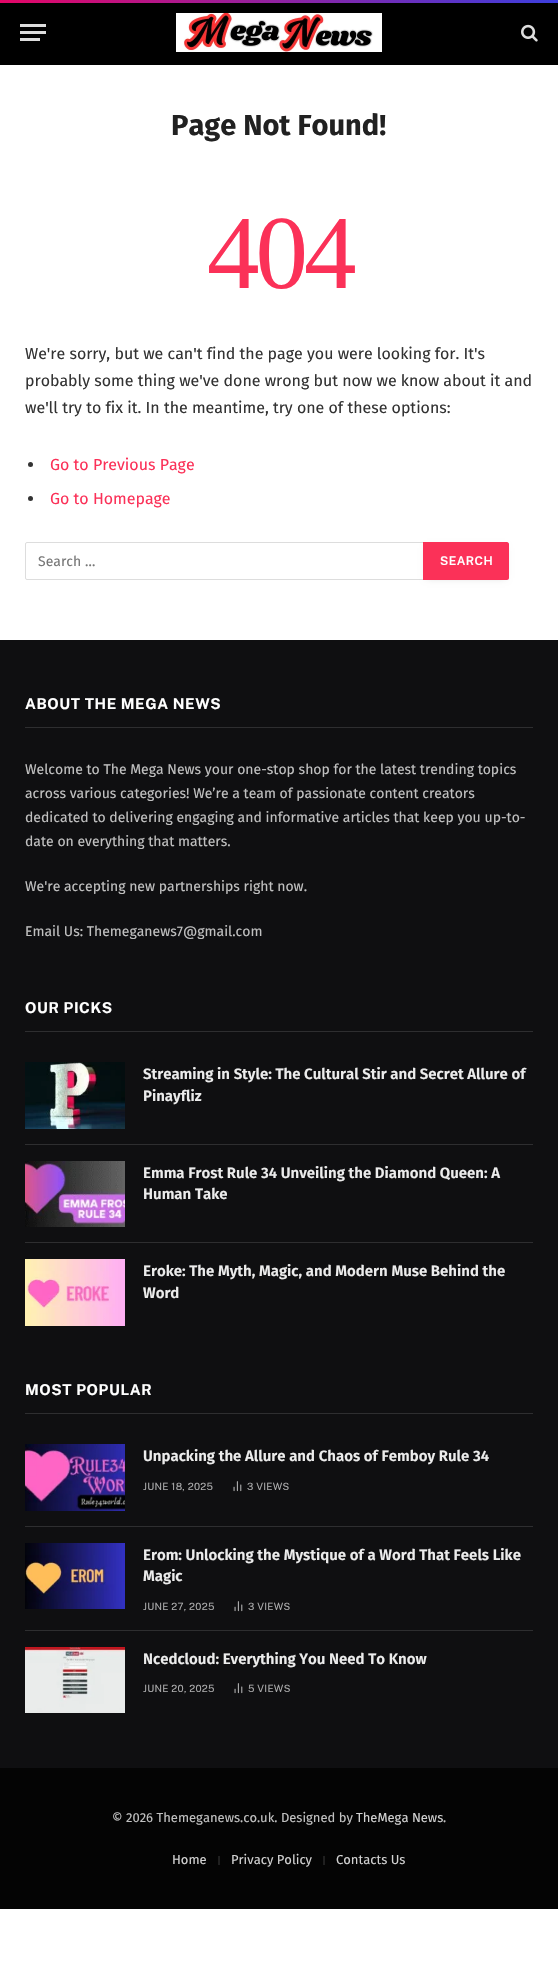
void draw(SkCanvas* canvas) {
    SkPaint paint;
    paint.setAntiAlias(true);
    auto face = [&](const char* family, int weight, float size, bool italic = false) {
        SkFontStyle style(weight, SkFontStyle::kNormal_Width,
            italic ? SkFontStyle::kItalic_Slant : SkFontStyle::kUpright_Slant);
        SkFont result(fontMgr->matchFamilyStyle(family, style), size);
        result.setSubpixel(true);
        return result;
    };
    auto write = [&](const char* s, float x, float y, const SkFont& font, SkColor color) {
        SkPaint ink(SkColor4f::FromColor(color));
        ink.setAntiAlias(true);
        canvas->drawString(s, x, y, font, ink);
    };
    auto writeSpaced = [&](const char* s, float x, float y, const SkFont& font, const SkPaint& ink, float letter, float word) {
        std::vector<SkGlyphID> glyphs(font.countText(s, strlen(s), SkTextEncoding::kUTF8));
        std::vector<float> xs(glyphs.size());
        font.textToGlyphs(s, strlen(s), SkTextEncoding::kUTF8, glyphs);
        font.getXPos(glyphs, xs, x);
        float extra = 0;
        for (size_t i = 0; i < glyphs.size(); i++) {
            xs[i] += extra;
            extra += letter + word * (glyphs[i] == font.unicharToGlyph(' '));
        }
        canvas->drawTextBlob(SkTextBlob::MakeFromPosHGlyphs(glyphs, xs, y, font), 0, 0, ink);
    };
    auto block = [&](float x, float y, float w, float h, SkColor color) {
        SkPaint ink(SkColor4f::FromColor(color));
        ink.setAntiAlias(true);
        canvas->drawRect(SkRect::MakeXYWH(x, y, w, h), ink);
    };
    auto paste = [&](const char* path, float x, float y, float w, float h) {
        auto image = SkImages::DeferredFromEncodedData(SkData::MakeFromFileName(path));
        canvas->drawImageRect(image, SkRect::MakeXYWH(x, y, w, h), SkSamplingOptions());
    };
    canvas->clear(SK_ColorWHITE);
    block(0, 3, 558, 62, SK_ColorBLACK);
    paste("pic1.png", 0, 0, 558, 3);
    block(20, 38, 20, 3, SkColorSetRGB(221, 221, 221));
    block(20, 24, 26, 3, SkColorSetRGB(221, 221, 221));
    block(20, 31, 26, 3, SkColorSetRGB(221, 221, 221));
    paste("pic2.png", 176, 13, 206, 39);
    paste("pic3.png", 521, 24, 17, 18);
    auto kFont1 = face("Fira Sans", 700, 29);
    write("Page Not Found!", 171, 135, kFont1, SkColorSetRGB(33, 33, 33));
    auto kFont2 = face("Liberation Serif", 400, 105);
    paint.setColor(SkColorSetRGB(251, 49, 88));
    writeSpaced("404", 207, 288, kFont2, paint, -4, 0);
    auto kFont3 = face("Fira Sans", 400, 15.95f);
    write("We're sorry, but we can't find the page you were looking for. It's", 25, 359, kFont3, SkColorSetRGB(51, 51, 51));
    write("probably some thing we've done wrong but now we know about it and", 25, 386, kFont3, SkColorSetRGB(51, 51, 51));
    write("we'll try to fix it. In the meantime, try one of these options:", 25, 413, kFont3, SkColorSetRGB(51, 51, 51));
    paint.setColor(SkColorSetRGB(51, 51, 51));
    canvas->drawCircle(30.5f, 464.5f, 2.5f, paint);
    write("Go to Previous Page", 50, 470, kFont3, SkColorSetRGB(251, 49, 88));
    canvas->drawCircle(30.5f, 498.5f, 2.5f, paint);
    write("Go to Homepage", 50, 504, kFont3, SkColorSetRGB(251, 49, 88));
    paint.setStyle(SkPaint::kStroke_Style);
    paint.setStrokeWidth(1);
    paint.setColor(SkColorSetRGB(221, 221, 221));
    canvas->drawRoundRect(SkRect::MakeXYWH(25.5f, 542.5f, 399, 37), 1.5f, 1.5f, paint);
    auto kFont4 = face("Fira Sans", 400, 14);
    write("Search …", 38, 566, kFont4, SkColorSetRGB(119, 119, 119));
    paint.setStyle(SkPaint::kFill_Style);
    paint.setColor(SkColorSetARGB(41, 0, 0, 0));
    paint.setMaskFilter(SkMaskFilter::MakeBlur(kNormal_SkBlurStyle, 3.5f));
    canvas->drawRect(SkRect::MakeXYWH(427, 548, 78, 30), paint);
    paint.setMaskFilter(nullptr);
    paint.setColor(SkColorSetRGB(251, 49, 88));
    canvas->drawPath(SkPathBuilder().moveTo(423, 542).lineTo(507, 542).cubicTo(508, 542, 509, 543, 509, 544).lineTo(509, 578).cubicTo(509, 579, 508, 580, 507, 580).lineTo(423, 580).close().detach(), paint);
    auto kFont5 = face("Public Sans", 600, 12);
    paint.setColor(SK_ColorWHITE);
    writeSpaced("SEARCH", 440, 565, kFont5, paint, 0.5f, 0);
    block(0, 640, 558, 1128, SkColorSetRGB(15, 15, 17));
    block(25, 727, 508, 1, SkColorSetRGB(46, 46, 48));
    auto kFont6 = face("Public Sans", 700, 15);
    writeSpaced("ABOUT THE MEGA NEWS", 25, 709, kFont6, paint, 0.6f, 0);
    write("Welcome to The Mega News your one-stop shop for the latest trending topics", 25, 774, kFont4, SkColorSetRGB(192, 192, 192));
    write("across various categories! We’re a team of passionate content creators", 25, 798, kFont4, SkColorSetRGB(192, 192, 192));
    write("dedicated to delivering engaging and informative articles that keep you up-to-", 25, 822, kFont4, SkColorSetRGB(192, 192, 192));
    write("date on everything that matters.", 25, 846, kFont4, SkColorSetRGB(192, 192, 192));
    write("We're accepting new partnerships right now.", 25, 891, kFont4, SkColorSetRGB(192, 192, 192));
    write("Email Us: Themeganews7@gmail.com", 25, 936, kFont4, SkColorSetRGB(192, 192, 192));
    block(25, 1031, 508, 1, SkColorSetRGB(46, 46, 48));
    writeSpaced("OUR PICKS", 25, 1013, kFont6, paint, 0.6f, 0);
    paste("pic4.png", 25, 1062, 100, 67);
    auto kFont7 = face("Fira Sans", 600, 15);
    write("Streaming in Style: The Cultural Stir and Secret Allure of", 143, 1079, kFont7, SkColorSetRGB(236, 236, 236));
    write("Pinayfliz", 143, 1101, kFont7, SkColorSetRGB(236, 236, 236));
    block(25, 1144, 508, 1, SkColorSetRGB(46, 46, 48));
    paste("pic5.png", 25, 1161, 100, 66);
    write("Emma Frost Rule 34 Unveiling the Diamond Queen: A", 143, 1178, kFont7, SkColorSetRGB(236, 236, 236));
    write("Human Take", 143, 1199, kFont7, SkColorSetRGB(236, 236, 236));
    block(25, 1242, 508, 1, SkColorSetRGB(46, 46, 48));
    paste("pic6.png", 25, 1259, 100, 67);
    write("Eroke: The Myth, Magic, and Modern Muse Behind the", 143, 1276, kFont7, SkColorSetRGB(236, 236, 236));
    write("Word", 143, 1298, kFont7, SkColorSetRGB(236, 236, 236));
    block(25, 1413, 508, 1, SkColorSetRGB(46, 46, 48));
    writeSpaced("MOST POPULAR", 25, 1395, kFont6, paint, 0.6f, 0);
    paste("pic7.png", 25, 1444, 100, 67);
    write("Unpacking the Allure and Chaos of Femboy Rule 34", 143, 1461, kFont7, SkColorSetRGB(236, 236, 236));
    auto kFont8 = face("Public Sans", 400, 10);
    paint.setColor(SkColorSetRGB(171, 171, 172));
    writeSpaced("JUNE 18, 2025", 143, 1490, kFont8, paint, 0.25f, 0);
    paste("pic8.png", 233, 1481, 9, 11);
    writeSpaced("3 VIEWS", 247, 1490, kFont8, paint, 0.25f, 0);
    block(25, 1526, 508, 1, SkColorSetRGB(46, 46, 48));
    paste("pic9.png", 25, 1543, 100, 66);
    write("Erom: Unlocking the Mystique of a Word That Feels Like", 143, 1560, kFont7, SkColorSetRGB(236, 236, 236));
    write("Magic", 143, 1581, kFont7, SkColorSetRGB(236, 236, 236));
    writeSpaced("JUNE 27, 2025", 143, 1610, kFont8, paint, 0.25f, 0);
    paste("pic8.png", 234, 1601, 9, 11);
    writeSpaced("3 VIEWS", 248, 1610, kFont8, paint, 0.25f, 0);
    block(25, 1630, 508, 1, SkColorSetRGB(46, 46, 48));
    paste("pic10.png", 25, 1647, 100, 66);
    write("Ncedcloud: Everything You Need To Know", 143, 1664, kFont7, SkColorSetRGB(236, 236, 236));
    writeSpaced("JUNE 20, 2025", 143, 1692, kFont8, paint, 0.25f, 0);
    paste("pic8.png", 234, 1683, 9, 11);
    writeSpaced("5 VIEWS", 248, 1692, kFont8, paint, 0.25f, 0);
    block(0, 1768, 558, 141, SkColorSetRGB(4, 4, 4));
    auto kFont9 = face("Fira Sans", 400, 13);
    write("© 2026 Themeganews.co.uk. Designed by", 112, 1822, kFont9, SkColorSetRGB(192, 192, 192));
    write("TheMega News", 356, 1822, kFont9, SkColorSetRGB(209, 209, 209));
    write(".", 443, 1822, kFont9, SkColorSetRGB(192, 192, 192));
    write("Home", 172, 1864, kFont9, SkColorSetRGB(209, 209, 209));
    auto kFont10 = face("Fira Sans", 400, 10);
    write("|", 217, 1864, kFont10, SkColorSetRGB(59, 59, 59));
    write("Privacy Policy", 231, 1864, kFont9, SkColorSetRGB(209, 209, 209));
    write("|", 322, 1864, kFont10, SkColorSetRGB(59, 59, 59));
    write("Contacts Us", 336, 1864, kFont9, SkColorSetRGB(209, 209, 209));
}
